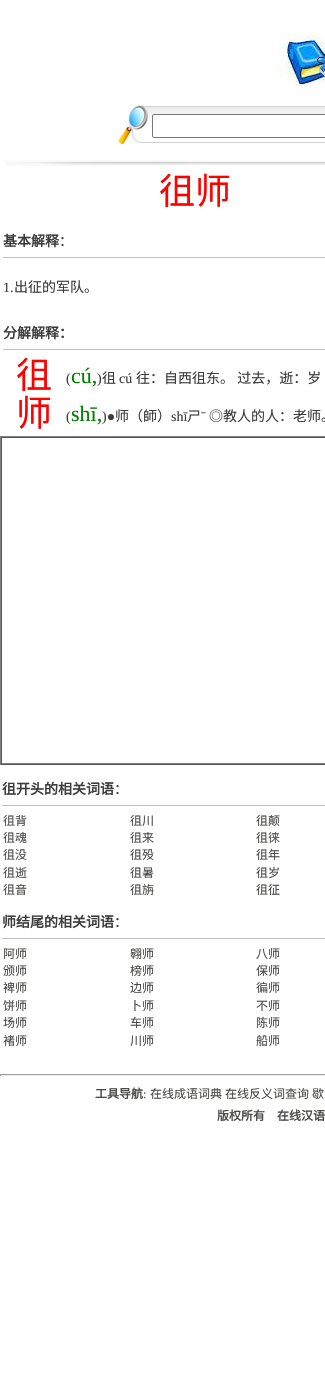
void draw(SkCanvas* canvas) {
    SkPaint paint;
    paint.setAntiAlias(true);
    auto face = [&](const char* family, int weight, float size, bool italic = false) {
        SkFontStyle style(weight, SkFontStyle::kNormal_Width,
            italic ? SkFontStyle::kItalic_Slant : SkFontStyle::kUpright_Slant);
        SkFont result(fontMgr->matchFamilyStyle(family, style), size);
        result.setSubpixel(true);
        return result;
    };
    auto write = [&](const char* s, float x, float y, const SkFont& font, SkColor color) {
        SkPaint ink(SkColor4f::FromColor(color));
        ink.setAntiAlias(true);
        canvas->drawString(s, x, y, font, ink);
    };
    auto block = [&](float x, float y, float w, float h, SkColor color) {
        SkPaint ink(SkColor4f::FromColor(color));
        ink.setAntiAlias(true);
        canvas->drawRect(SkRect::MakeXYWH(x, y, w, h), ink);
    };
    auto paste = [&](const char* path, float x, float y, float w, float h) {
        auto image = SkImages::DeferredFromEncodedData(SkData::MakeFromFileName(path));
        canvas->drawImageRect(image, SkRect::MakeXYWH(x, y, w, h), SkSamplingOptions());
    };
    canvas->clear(SK_ColorWHITE);
    paste("pic1.png", 279, 34, 46, 54);
    paste("pic2.png", 118, 105, 31, 39);
    paste("pic3.png", 149, 106, 176, 37);
    paint.setColor(SK_ColorWHITE);
    canvas->drawRoundRect(SkRect::MakeXYWH(152.5f, 114.5f, 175, 23), 1.5f, 1.5f, paint);
    paint.setStyle(SkPaint::kStroke_Style);
    paint.setStrokeWidth(1);
    paint.setColor(SkColorSetRGB(118, 118, 118));
    canvas->drawRoundRect(SkRect::MakeXYWH(152.5f, 114.5f, 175, 23), 1.5f, 1.5f, paint);
    paste("pic4.png", 5, 160, 320, 6);
    auto kFont1 = face("Noto Sans CJK SC", 400, 36);
    write("徂师", 159, 204, kFont1, SkColorSetRGB(255, 0, 0));
    auto kFont2 = face("Noto Sans CJK SC", 700, 14);
    write("基本解释", 3, 246, kFont2, SkColorSetRGB(60, 60, 60));
    auto kFont3 = face("Noto Sans CJK SC", 400, 14);
    write("：", 59, 246, kFont3, SkColorSetRGB(60, 60, 60));
    block(3, 257, 322, 1, SkColorSetRGB(192, 192, 192));
    auto kFont4 = face("Liberation Serif", 400, 14);
    write("1.", 3, 292, kFont4, SkColorSetRGB(60, 60, 60));
    write("出征的军队。", 14, 292, kFont3, SkColorSetRGB(60, 60, 60));
    write("分解解释：", 3, 338, kFont2, SkColorSetRGB(60, 60, 60));
    block(3, 349, 322, 1, SkColorSetRGB(192, 192, 192));
    write("徂", 16, 388, kFont1, SkColorSetRGB(255, 0, 0));
    write("(", 66, 383, kFont4, SkColorSetRGB(60, 60, 60));
    auto kFont5 = face("Liberation Serif", 400, 22);
    write("cú,", 71, 383, kFont5, SkColorSetRGB(0, 128, 0));
    write(")", 97, 383, kFont4, SkColorSetRGB(60, 60, 60));
    write("徂", 102, 383, kFont3, SkColorSetRGB(60, 60, 60));
    write("cú", 119, 383, kFont4, SkColorSetRGB(60, 60, 60));
    write("往：自西徂东。 过去，逝：岁", 136, 383, kFont3, SkColorSetRGB(60, 60, 60));
    write("师", 16, 426, kFont1, SkColorSetRGB(255, 0, 0));
    write("(", 66, 421, kFont4, SkColorSetRGB(60, 60, 60));
    write("shī,", 71, 421, kFont5, SkColorSetRGB(0, 128, 0));
    write(")●", 102, 421, kFont4, SkColorSetRGB(60, 60, 60));
    write("师（師）", 115, 421, kFont3, SkColorSetRGB(60, 60, 60));
    write("shī", 171, 421, kFont4, SkColorSetRGB(60, 60, 60));
    write("ㄕ", 187, 421, kFont3, SkColorSetRGB(60, 60, 60));
    write("ˉ", 201, 421, kFont4, SkColorSetRGB(60, 60, 60));
    write("◎教人的人：老师。", 209, 421, kFont3, SkColorSetRGB(60, 60, 60));
    block(0, 436, 325, 1, SkColorSetRGB(128, 128, 128));
    block(0, 764, 325, 1, SkColorSetRGB(85, 85, 85));
    block(0, 436, 1, 329, SkColorSetRGB(128, 128, 128));
    block(1, 437, 324, 1, SkColorSetRGB(85, 85, 85));
    block(1, 763, 324, 1, SkColorSetRGB(128, 128, 128));
    block(1, 437, 1, 327, SkColorSetRGB(85, 85, 85));
    write("徂开头的相关词语", 2, 794, kFont2, SkColorSetRGB(60, 60, 60));
    write("：", 114, 794, kFont3, SkColorSetRGB(60, 60, 60));
    block(2, 805, 323, 1, SkColorSetRGB(192, 192, 192));
    auto kFont6 = face("Noto Sans CJK SC", 400, 12);
    write("徂背", 3, 825, kFont6, SkColorSetRGB(74, 74, 72));
    write("徂川", 130, 825, kFont6, SkColorSetRGB(74, 74, 72));
    write("徂颠", 256, 825, kFont6, SkColorSetRGB(74, 74, 72));
    write("徂魂", 3, 842, kFont6, SkColorSetRGB(74, 74, 72));
    write("徂来", 130, 842, kFont6, SkColorSetRGB(74, 74, 72));
    write("徂徕", 256, 842, kFont6, SkColorSetRGB(74, 74, 72));
    write("徂没", 3, 859, kFont6, SkColorSetRGB(74, 74, 72));
    write("徂殁", 130, 859, kFont6, SkColorSetRGB(74, 74, 72));
    write("徂年", 256, 859, kFont6, SkColorSetRGB(74, 74, 72));
    write("徂逝", 3, 877, kFont6, SkColorSetRGB(74, 74, 72));
    write("徂暑", 130, 877, kFont6, SkColorSetRGB(74, 74, 72));
    write("徂岁", 256, 877, kFont6, SkColorSetRGB(74, 74, 72));
    write("徂音", 3, 894, kFont6, SkColorSetRGB(74, 74, 72));
    write("徂旃", 130, 894, kFont6, SkColorSetRGB(74, 74, 72));
    write("徂征", 256, 894, kFont6, SkColorSetRGB(74, 74, 72));
    write("师结尾的相关词语", 2, 927, kFont2, SkColorSetRGB(60, 60, 60));
    write("：", 114, 927, kFont3, SkColorSetRGB(60, 60, 60));
    block(2, 938, 323, 1, SkColorSetRGB(192, 192, 192));
    write("阿师", 3, 958, kFont6, SkColorSetRGB(74, 74, 72));
    write("翱师", 130, 958, kFont6, SkColorSetRGB(74, 74, 72));
    write("八师", 256, 958, kFont6, SkColorSetRGB(74, 74, 72));
    write("颁师", 3, 975, kFont6, SkColorSetRGB(74, 74, 72));
    write("榜师", 130, 975, kFont6, SkColorSetRGB(74, 74, 72));
    write("保师", 256, 975, kFont6, SkColorSetRGB(74, 74, 72));
    write("裨师", 3, 992, kFont6, SkColorSetRGB(74, 74, 72));
    write("边师", 130, 992, kFont6, SkColorSetRGB(74, 74, 72));
    write("徧师", 256, 992, kFont6, SkColorSetRGB(74, 74, 72));
    write("饼师", 3, 1010, kFont6, SkColorSetRGB(74, 74, 72));
    write("卜师", 130, 1010, kFont6, SkColorSetRGB(74, 74, 72));
    write("不师", 256, 1010, kFont6, SkColorSetRGB(74, 74, 72));
    write("场师", 3, 1027, kFont6, SkColorSetRGB(74, 74, 72));
    write("车师", 130, 1027, kFont6, SkColorSetRGB(74, 74, 72));
    write("陈师", 256, 1027, kFont6, SkColorSetRGB(74, 74, 72));
    write("褚师", 3, 1045, kFont6, SkColorSetRGB(74, 74, 72));
    write("川师", 130, 1045, kFont6, SkColorSetRGB(74, 74, 72));
    write("船师", 256, 1045, kFont6, SkColorSetRGB(74, 74, 72));
    block(0, 1074, 325, 1, SkColorSetRGB(159, 159, 159));
    block(0, 1075, 325, 1, SkColorSetRGB(238, 238, 238));
    block(0, 1074, 1, 2, SkColorSetRGB(159, 159, 159));
    auto kFont7 = face("Noto Sans CJK SC", 700, 12);
    write("工具导航", 95, 1098, kFont7, SkColorSetRGB(74, 74, 72));
    auto kFont8 = face("Liberation Serif", 400, 12);
    write(":", 143, 1098, kFont8, SkColorSetRGB(74, 74, 72));
    write("在线成语词典", 150, 1098, kFont6, SkColorSetRGB(74, 74, 72));
    write("在线反义词查询", 225, 1098, kFont6, SkColorSetRGB(74, 74, 72));
    write("歇", 312, 1098, kFont6, SkColorSetRGB(74, 74, 72));
    write("版权所有　在线汉语", 217, 1120, kFont7, SkColorSetRGB(74, 74, 72));
}
